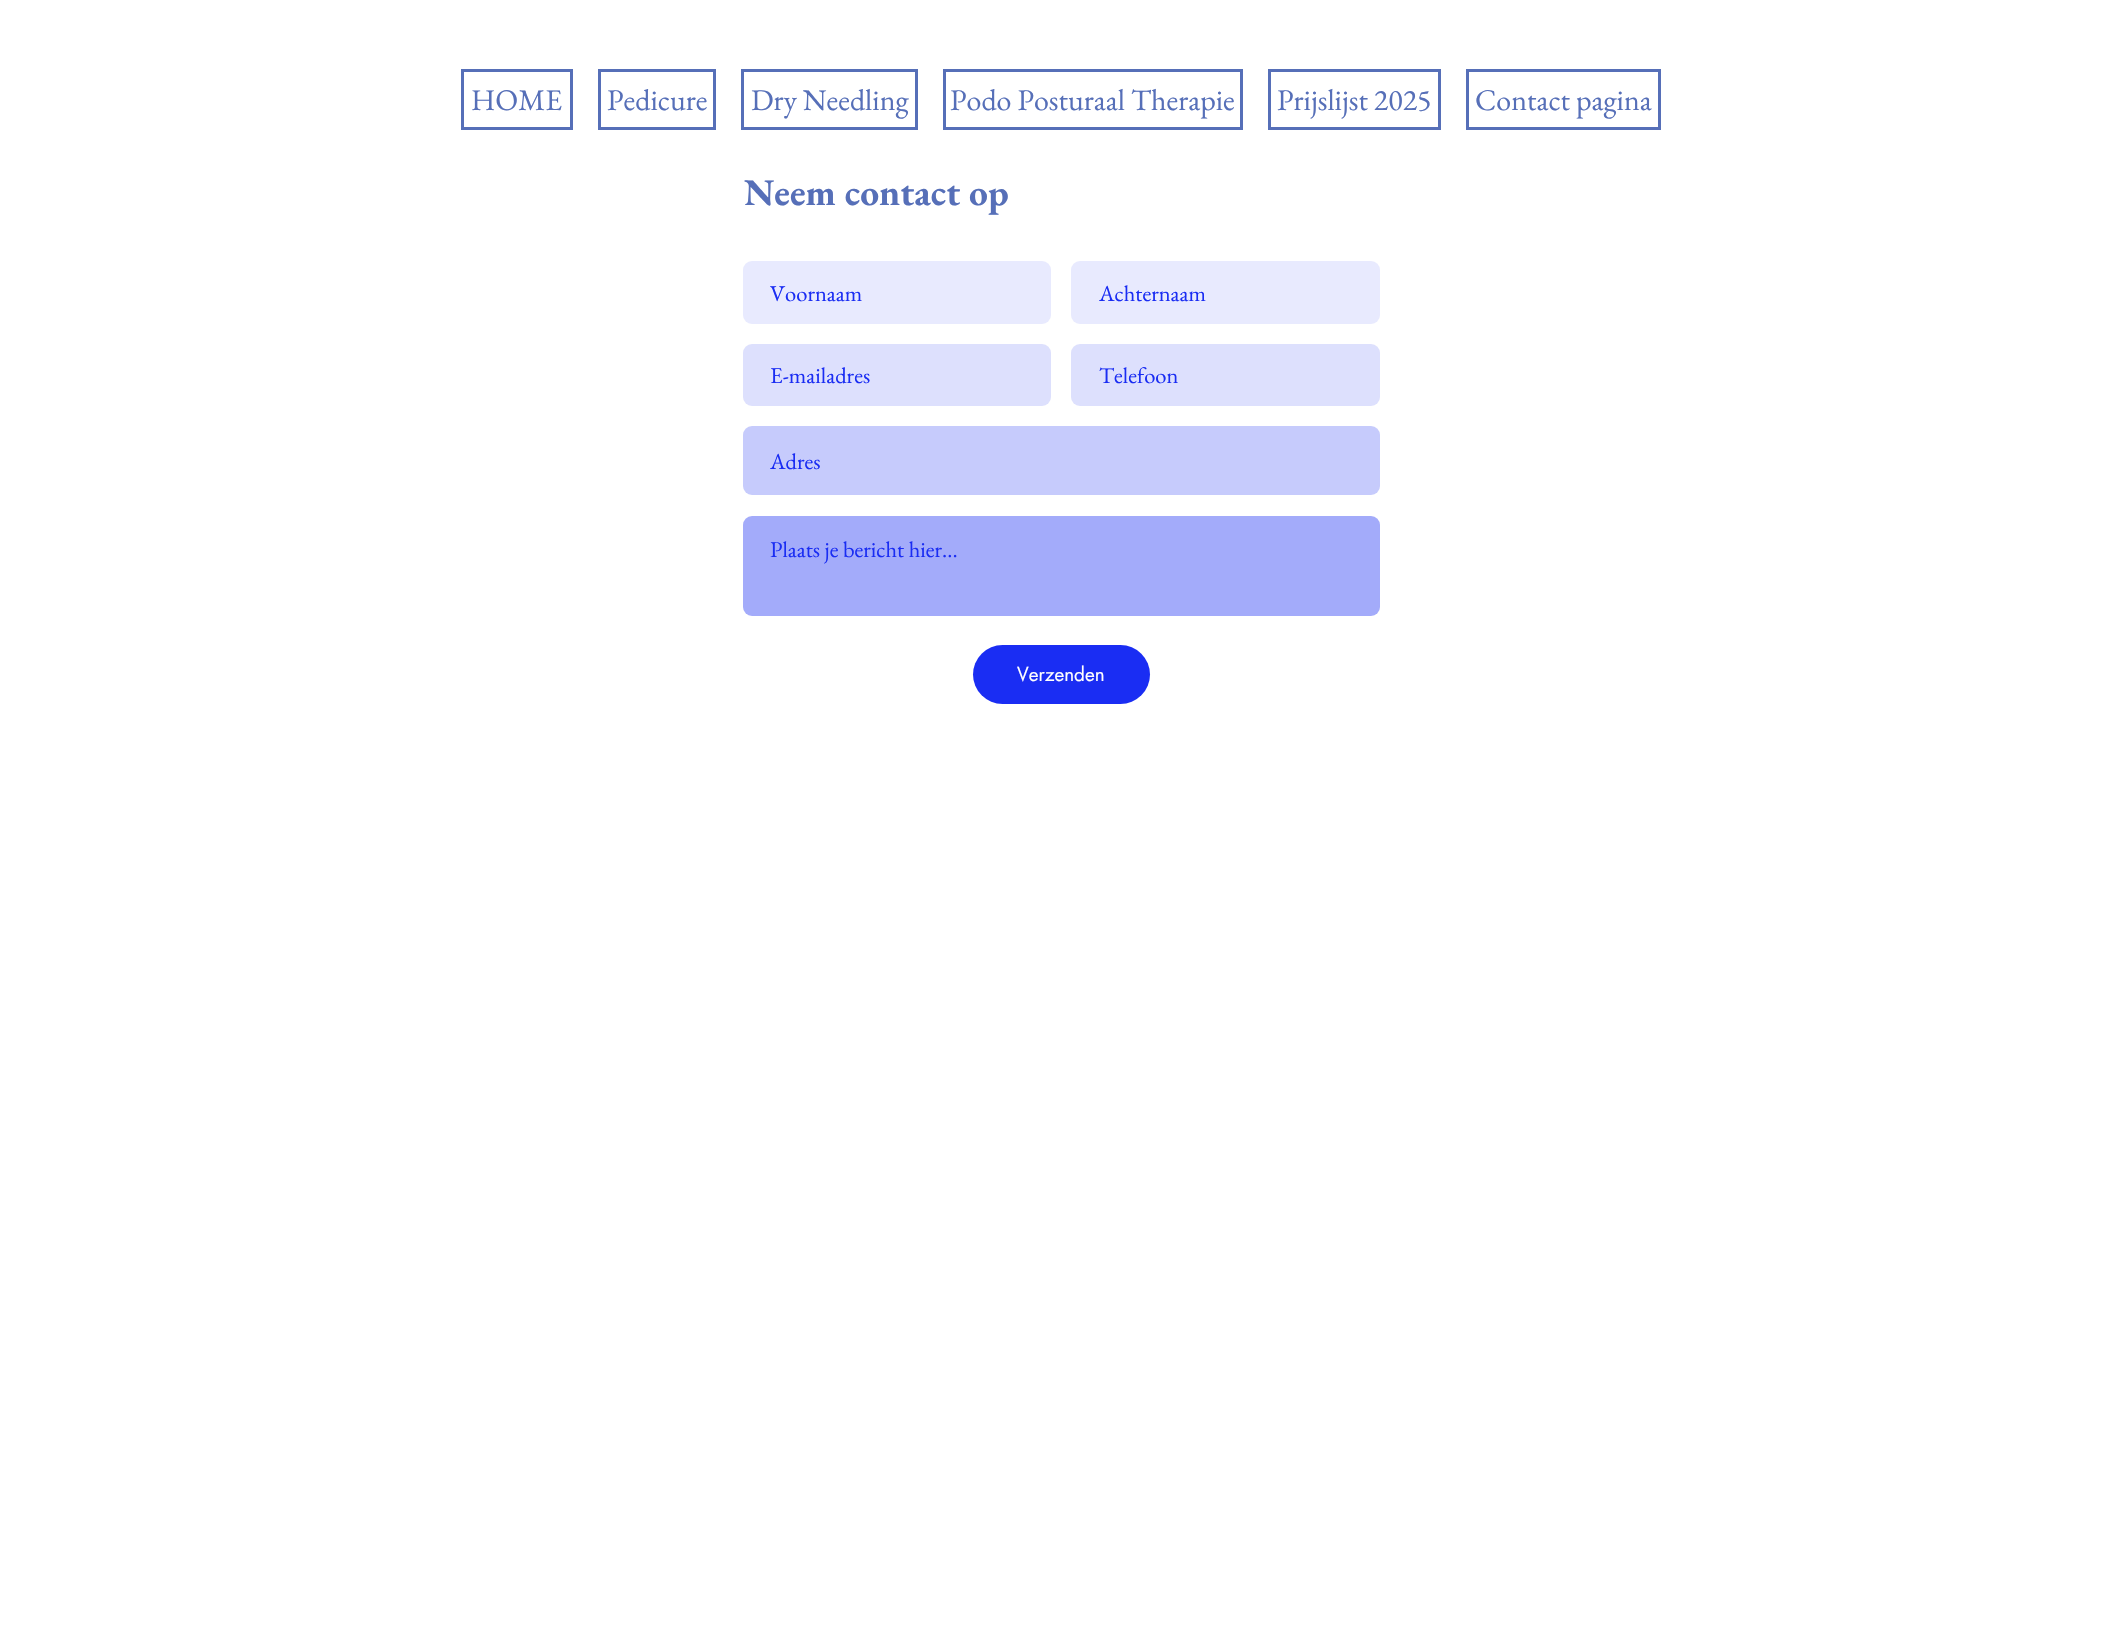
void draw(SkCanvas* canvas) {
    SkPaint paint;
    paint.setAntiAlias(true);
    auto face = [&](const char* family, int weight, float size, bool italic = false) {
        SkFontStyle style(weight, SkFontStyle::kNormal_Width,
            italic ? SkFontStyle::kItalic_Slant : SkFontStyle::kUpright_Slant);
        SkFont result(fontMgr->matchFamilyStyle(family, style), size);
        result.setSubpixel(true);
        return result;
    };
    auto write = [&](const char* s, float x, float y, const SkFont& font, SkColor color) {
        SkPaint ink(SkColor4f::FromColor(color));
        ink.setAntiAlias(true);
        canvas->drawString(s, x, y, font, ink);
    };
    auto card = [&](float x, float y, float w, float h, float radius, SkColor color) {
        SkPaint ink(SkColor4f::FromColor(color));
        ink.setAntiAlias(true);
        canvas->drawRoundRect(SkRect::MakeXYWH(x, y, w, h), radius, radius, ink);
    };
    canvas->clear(SK_ColorWHITE);
    paint.setStyle(SkPaint::kStroke_Style);
    paint.setStrokeWidth(3);
    paint.setColor(SkColorSetRGB(86, 111, 184));
    canvas->drawRect(SkRect::MakeXYWH(462.5f, 70.5f, 109, 58), paint);
    auto kFont1 = face("EB Garamond", 400, 30);
    write("HOME", 471, 110, kFont1, SkColorSetRGB(86, 111, 184));
    canvas->drawRect(SkRect::MakeXYWH(599.5f, 70.5f, 115, 58), paint);
    write("Pedicure", 607, 110, kFont1, SkColorSetRGB(86, 111, 184));
    canvas->drawRect(SkRect::MakeXYWH(742.5f, 70.5f, 174, 58), paint);
    write("Dry Needling", 751, 110, kFont1, SkColorSetRGB(86, 111, 184));
    canvas->drawRect(SkRect::MakeXYWH(944.5f, 70.5f, 297, 58), paint);
    write("Podo Posturaal Therapie", 950, 110, kFont1, SkColorSetRGB(86, 111, 184));
    canvas->drawRect(SkRect::MakeXYWH(1269.5f, 70.5f, 170, 58), paint);
    write("Prijslijst 2025", 1277, 110, kFont1, SkColorSetRGB(86, 111, 184));
    canvas->drawRect(SkRect::MakeXYWH(1467.5f, 70.5f, 192, 58), paint);
    write("Contact pagina", 1475, 110, kFont1, SkColorSetRGB(86, 111, 184));
    auto kFont2 = face("EB Garamond", 700, 37.5f);
    write("Neem contact op", 744, 205, kFont2, SkColorSetRGB(86, 111, 184));
    card(743, 261, 308, 63, 9, SkColorSetRGB(232, 234, 254));
    auto kFont3 = face("EB Garamond", 400, 22.5f);
    write("Voornaam", 770, 301, kFont3, SkColorSetRGB(26, 45, 243));
    card(1071, 261, 309, 63, 9, SkColorSetRGB(232, 234, 254));
    write("Achternaam", 1099, 301, kFont3, SkColorSetRGB(26, 45, 243));
    card(743, 344, 308, 62, 9, SkColorSetRGB(221, 224, 253));
    write("E-mailadres", 770, 383, kFont3, SkColorSetRGB(26, 45, 243));
    card(1071, 344, 309, 62, 9, SkColorSetRGB(221, 224, 253));
    write("Telefoon", 1099, 383, kFont3, SkColorSetRGB(26, 45, 243));
    card(743, 426, 637, 69, 9, SkColorSetRGB(198, 203, 252));
    write("Adres", 770, 469, kFont3, SkColorSetRGB(26, 45, 243));
    card(743, 516, 637, 100, 9, SkColorSetRGB(163, 171, 250));
    write("Plaats je bericht hier...", 770, 557, kFont3, SkColorSetRGB(26, 45, 243));
    card(973, 645, 177, 59, 29.5f, SkColorSetRGB(26, 45, 243));
    auto kFont4 = face("futura", 400, 18.75f);
    write("Verzenden", 1017, 681, kFont4, SK_ColorWHITE);
}
